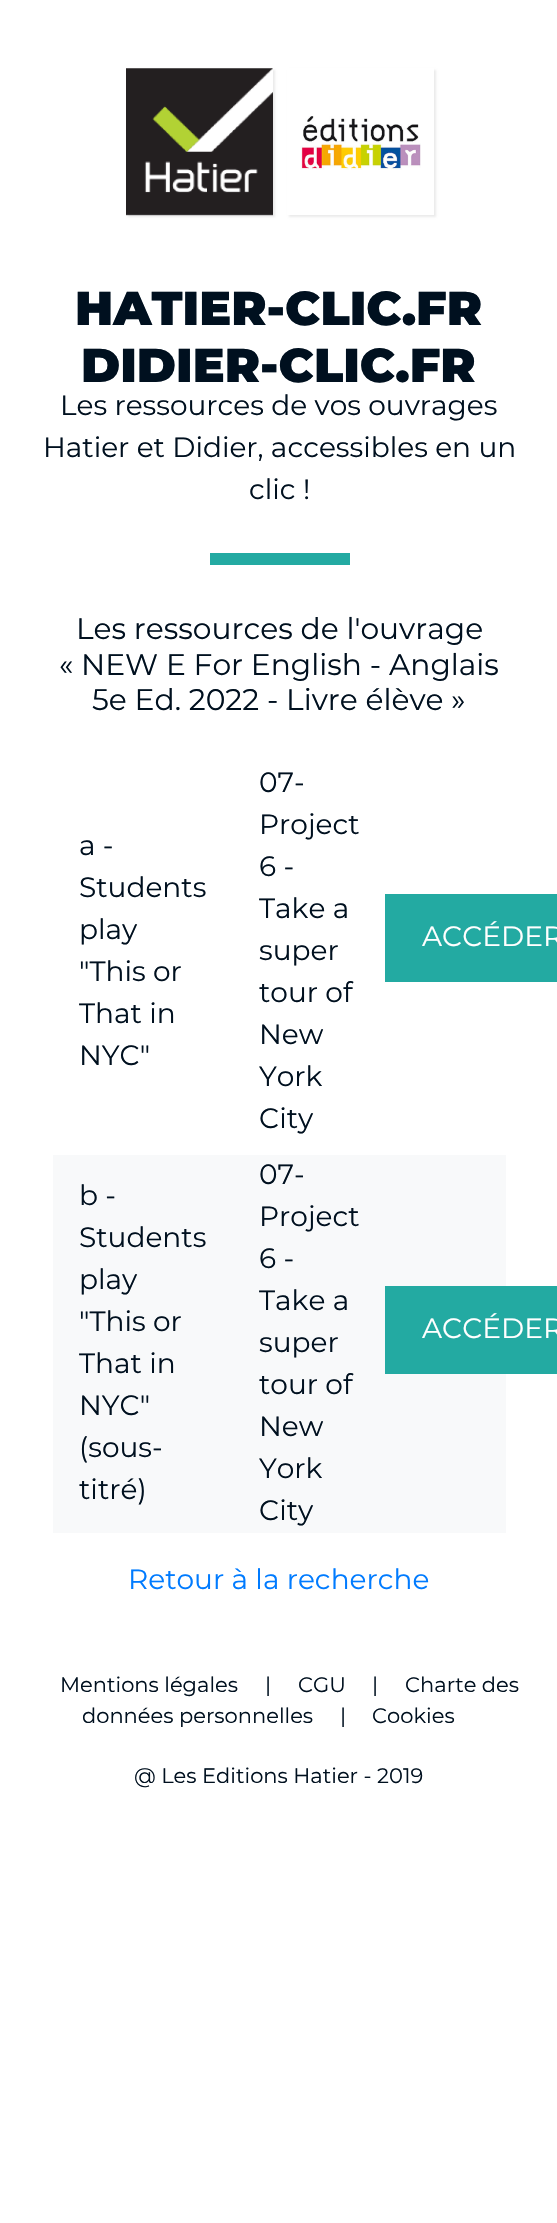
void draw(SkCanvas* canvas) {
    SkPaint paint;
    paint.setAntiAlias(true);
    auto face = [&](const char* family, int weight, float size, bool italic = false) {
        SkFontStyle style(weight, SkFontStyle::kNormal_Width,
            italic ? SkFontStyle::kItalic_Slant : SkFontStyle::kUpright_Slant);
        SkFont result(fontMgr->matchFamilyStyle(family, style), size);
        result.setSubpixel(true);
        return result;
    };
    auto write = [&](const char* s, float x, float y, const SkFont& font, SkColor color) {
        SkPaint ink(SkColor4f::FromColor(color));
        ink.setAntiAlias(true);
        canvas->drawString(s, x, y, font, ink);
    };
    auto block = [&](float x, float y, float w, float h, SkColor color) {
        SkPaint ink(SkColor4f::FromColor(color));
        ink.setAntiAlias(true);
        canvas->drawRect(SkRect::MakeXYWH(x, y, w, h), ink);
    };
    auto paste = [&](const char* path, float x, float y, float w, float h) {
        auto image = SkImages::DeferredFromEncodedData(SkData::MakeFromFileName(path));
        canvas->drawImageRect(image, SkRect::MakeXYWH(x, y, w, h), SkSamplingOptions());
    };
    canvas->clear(SK_ColorWHITE);
    paint.setColor(SkColorSetARGB(20, 0, 0, 0));
    paint.setMaskFilter(SkMaskFilter::MakeBlur(kNormal_SkBlurStyle, 1));
    canvas->drawRect(SkRect::MakeXYWH(128, 70, 147, 147), paint);
    paint.setMaskFilter(nullptr);
    paste("pic1.png", 126, 68, 147, 148);
    canvas->save();
    canvas->clipPath(SkPathBuilder(SkPathFillType::kEvenOdd).moveTo(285, 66).lineTo(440, 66).lineTo(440, 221).lineTo(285, 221).close().moveTo(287, 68).lineTo(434, 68).lineTo(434, 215).lineTo(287, 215).close().detach(), true);
    paint.setMaskFilter(SkMaskFilter::MakeBlur(kNormal_SkBlurStyle, 1));
    canvas->drawRect(SkRect::MakeXYWH(289, 70, 147, 147), paint);
    paint.setMaskFilter(nullptr);
    canvas->restore();
    paste("pic2.png", 300, 116, 121, 54);
    auto kFont1 = face("Montserrat", 900, 47.5f);
    write("HATIER-CLIC.FR", 75, 325, kFont1, SkColorSetRGB(0, 16, 31));
    write("DIDIER-CLIC.FR", 81, 382, kFont1, SkColorSetRGB(0, 16, 31));
    auto kFont2 = face("Montserrat", 400, 28);
    write("Les ressources de vos ouvrages", 60, 415, kFont2, SkColorSetRGB(0, 16, 31));
    write("Hatier et Didier, accessibles en un", 43, 457, kFont2, SkColorSetRGB(0, 16, 31));
    write("clic !", 249, 499, kFont2, SkColorSetRGB(0, 16, 31));
    block(210, 553, 140, 12, SkColorSetRGB(35, 170, 162));
    auto kFont3 = face("Montserrat", 400, 29.75f);
    write("Les ressources de l'ouvrage", 76, 639, kFont3, SkColorSetRGB(0, 16, 31));
    write("« NEW E For English - Anglais", 59, 675, kFont3, SkColorSetRGB(0, 16, 31));
    write("5e Ed. 2022 - Livre élève »", 92, 710, kFont3, SkColorSetRGB(0, 16, 31));
    write("a -", 79, 855, kFont2, SkColorSetRGB(0, 16, 31));
    write("Students", 79, 897, kFont2, SkColorSetRGB(0, 16, 31));
    write("play", 79, 939, kFont2, SkColorSetRGB(0, 16, 31));
    write("\"This or", 79, 981, kFont2, SkColorSetRGB(0, 16, 31));
    write("That in", 79, 1023, kFont2, SkColorSetRGB(0, 16, 31));
    write("NYC\"", 79, 1065, kFont2, SkColorSetRGB(0, 16, 31));
    write("07-", 259, 792, kFont2, SkColorSetRGB(0, 16, 31));
    write("Project", 259, 834, kFont2, SkColorSetRGB(0, 16, 31));
    write("6 -", 259, 876, kFont2, SkColorSetRGB(0, 16, 31));
    write("Take a", 259, 918, kFont2, SkColorSetRGB(0, 16, 31));
    write("super", 259, 960, kFont2, SkColorSetRGB(0, 16, 31));
    write("tour of", 259, 1002, kFont2, SkColorSetRGB(0, 16, 31));
    write("New", 259, 1044, kFont2, SkColorSetRGB(0, 16, 31));
    write("York", 259, 1086, kFont2, SkColorSetRGB(0, 16, 31));
    write("City", 259, 1128, kFont2, SkColorSetRGB(0, 16, 31));
    block(385, 894, 172, 88, SkColorSetRGB(35, 170, 162));
    write("ACCÉDER", 422, 946, kFont2, SK_ColorWHITE);
    block(53, 1155, 453, 378, SkColorSetRGB(248, 249, 250));
    write("b -", 79, 1205, kFont2, SkColorSetRGB(0, 16, 31));
    write("Students", 79, 1247, kFont2, SkColorSetRGB(0, 16, 31));
    write("play", 79, 1289, kFont2, SkColorSetRGB(0, 16, 31));
    write("\"This or", 79, 1331, kFont2, SkColorSetRGB(0, 16, 31));
    write("That in", 79, 1373, kFont2, SkColorSetRGB(0, 16, 31));
    write("NYC\"", 79, 1415, kFont2, SkColorSetRGB(0, 16, 31));
    write("(sous-", 79, 1457, kFont2, SkColorSetRGB(0, 16, 31));
    write("titré)", 79, 1499, kFont2, SkColorSetRGB(0, 16, 31));
    write("07-", 259, 1184, kFont2, SkColorSetRGB(0, 16, 31));
    write("Project", 259, 1226, kFont2, SkColorSetRGB(0, 16, 31));
    write("6 -", 259, 1268, kFont2, SkColorSetRGB(0, 16, 31));
    write("Take a", 259, 1310, kFont2, SkColorSetRGB(0, 16, 31));
    write("super", 259, 1352, kFont2, SkColorSetRGB(0, 16, 31));
    write("tour of", 259, 1394, kFont2, SkColorSetRGB(0, 16, 31));
    write("New", 259, 1436, kFont2, SkColorSetRGB(0, 16, 31));
    write("York", 259, 1478, kFont2, SkColorSetRGB(0, 16, 31));
    write("City", 259, 1520, kFont2, SkColorSetRGB(0, 16, 31));
    block(385, 1286, 172, 88, SkColorSetRGB(35, 170, 162));
    write("ACCÉDER", 422, 1338, kFont2, SK_ColorWHITE);
    write("Retour à la recherche", 128, 1589, kFont2, SkColorSetRGB(0, 123, 255));
    auto kFont4 = face("Montserrat", 400, 21);
    write("Mentions légales", 60, 1692, kFont4, SkColorSetRGB(0, 16, 31));
    write("|", 265, 1692, kFont4, SkColorSetRGB(0, 16, 31));
    write("CGU", 298, 1692, kFont4, SkColorSetRGB(0, 16, 31));
    write("|", 372, 1692, kFont4, SkColorSetRGB(0, 16, 31));
    write("Charte des", 405, 1692, kFont4, SkColorSetRGB(0, 16, 31));
    write("données personnelles", 82, 1723, kFont4, SkColorSetRGB(0, 16, 31));
    write("|", 340, 1723, kFont4, SkColorSetRGB(0, 16, 31));
    write("Cookies", 372, 1723, kFont4, SkColorSetRGB(0, 16, 31));
    write("@ Les Editions Hatier - 2019", 134, 1783, kFont4, SkColorSetRGB(0, 16, 31));
}
